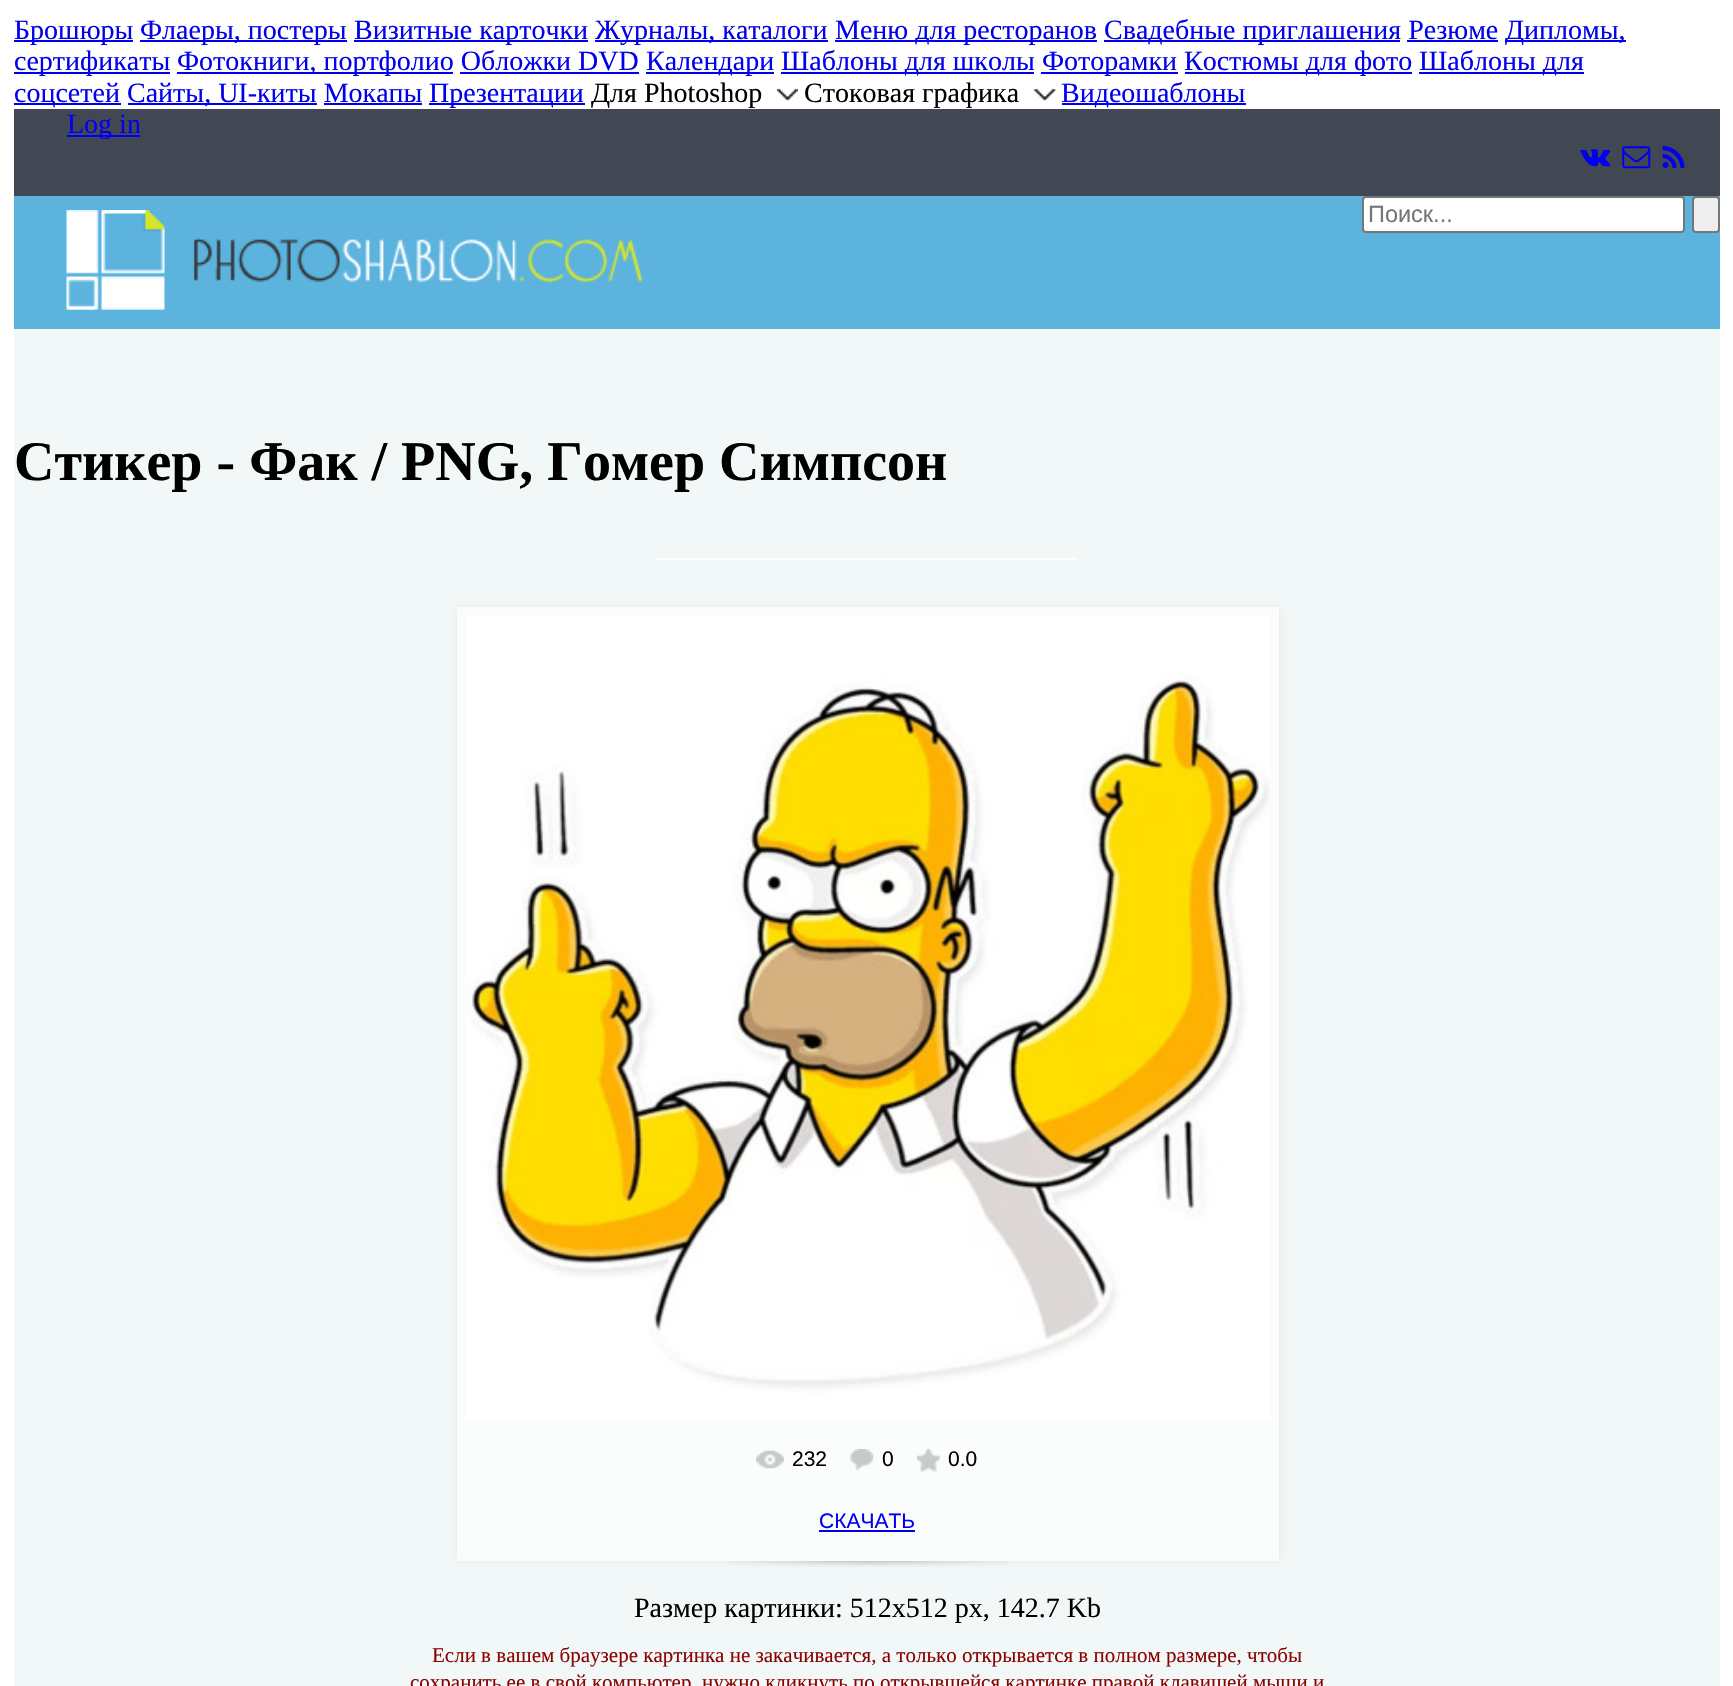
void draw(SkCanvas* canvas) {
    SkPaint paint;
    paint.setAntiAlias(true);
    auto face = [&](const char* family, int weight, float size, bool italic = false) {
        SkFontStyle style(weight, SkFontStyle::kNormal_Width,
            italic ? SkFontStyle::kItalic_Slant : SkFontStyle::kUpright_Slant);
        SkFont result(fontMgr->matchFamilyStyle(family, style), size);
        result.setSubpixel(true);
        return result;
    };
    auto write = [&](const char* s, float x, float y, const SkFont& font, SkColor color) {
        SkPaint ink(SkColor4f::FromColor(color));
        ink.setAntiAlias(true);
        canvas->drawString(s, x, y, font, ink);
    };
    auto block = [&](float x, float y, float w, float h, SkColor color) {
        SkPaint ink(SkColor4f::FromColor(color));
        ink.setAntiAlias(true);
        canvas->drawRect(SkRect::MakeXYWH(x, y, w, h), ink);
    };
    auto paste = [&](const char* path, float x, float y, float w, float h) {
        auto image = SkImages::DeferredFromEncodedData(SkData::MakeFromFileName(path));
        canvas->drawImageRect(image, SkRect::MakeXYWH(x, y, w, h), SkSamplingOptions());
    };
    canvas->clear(SK_ColorWHITE);
    block(14, 40, 119, 2, SkColorSetRGB(0, 0, 238));
    auto kFont1 = face("Liberation Serif", 400, 28);
    write("Брошюры", 14, 39, kFont1, SkColorSetRGB(0, 0, 238));
    block(140, 40, 207, 2, SkColorSetRGB(0, 0, 238));
    write("Флаеры, постеры", 140, 39, kFont1, SkColorSetRGB(0, 0, 238));
    block(354, 40, 234, 2, SkColorSetRGB(0, 0, 238));
    write("Визитные карточки", 354, 39, kFont1, SkColorSetRGB(0, 0, 238));
    block(595, 40, 233, 2, SkColorSetRGB(0, 0, 238));
    write("Журналы, каталоги", 595, 39, kFont1, SkColorSetRGB(0, 0, 238));
    block(835, 40, 262, 2, SkColorSetRGB(0, 0, 238));
    write("Меню для ресторанов", 835, 39, kFont1, SkColorSetRGB(0, 0, 238));
    block(1104, 40, 296, 2, SkColorSetRGB(0, 0, 238));
    write("Свадебные приглашения Резюме", 1104, 39, kFont1, SkColorSetRGB(0, 0, 238));
    block(1505, 40, 121, 2, SkColorSetRGB(0, 0, 238));
    write("Дипломы,", 1505, 39, kFont1, SkColorSetRGB(0, 0, 238));
    block(1407, 40, 91, 2, SkColorSetRGB(0, 0, 238));
    block(14, 72, 156, 2, SkColorSetRGB(0, 0, 238));
    write("сертификаты", 14, 70, kFont1, SkColorSetRGB(0, 0, 238));
    block(177, 72, 276, 2, SkColorSetRGB(0, 0, 238));
    write("Фотокниги, портфолио Обложки DVD", 177, 70, kFont1, SkColorSetRGB(0, 0, 238));
    block(646, 72, 128, 2, SkColorSetRGB(0, 0, 238));
    write("Календари", 646, 70, kFont1, SkColorSetRGB(0, 0, 238));
    block(781, 72, 253, 2, SkColorSetRGB(0, 0, 238));
    write("Шаблоны для школы", 781, 70, kFont1, SkColorSetRGB(0, 0, 238));
    block(1041, 72, 137, 2, SkColorSetRGB(0, 0, 238));
    write("Фоторамки", 1042, 70, kFont1, SkColorSetRGB(0, 0, 238));
    block(1185, 72, 227, 2, SkColorSetRGB(0, 0, 238));
    write("Костюмы для фото", 1184, 70, kFont1, SkColorSetRGB(0, 0, 238));
    block(1419, 72, 165, 2, SkColorSetRGB(0, 0, 238));
    write("Шаблоны для", 1419, 70, kFont1, SkColorSetRGB(0, 0, 238));
    block(460, 72, 179, 2, SkColorSetRGB(0, 0, 238));
    block(14, 103, 107, 2, SkColorSetRGB(0, 0, 238));
    write("соцсетей", 14, 102, kFont1, SkColorSetRGB(0, 0, 238));
    block(128, 103, 189, 2, SkColorSetRGB(0, 0, 238));
    write("Сайты, UI-киты Мокапы", 127, 102, kFont1, SkColorSetRGB(0, 0, 238));
    block(429, 103, 156, 2, SkColorSetRGB(0, 0, 238));
    write("Презентации", 429, 102, kFont1, SkColorSetRGB(0, 0, 238));
    write("Для Photoshop", 591, 102, kFont1, SK_ColorBLACK);
    paste("pic1.png", 777, 88, 21, 13);
    write("Стоковая графика", 804, 102, kFont1, SK_ColorBLACK);
    paste("pic2.png", 1034, 88, 22, 13);
    block(1062, 103, 184, 2, SkColorSetRGB(0, 0, 238));
    write("Видеошаблоны", 1061, 102, kFont1, SkColorSetRGB(0, 0, 238));
    block(324, 103, 98, 2, SkColorSetRGB(0, 0, 238));
    block(14, 109, 1706, 87, SkColorSetRGB(66, 71, 84));
    block(67, 135, 73, 2, SkColorSetRGB(0, 0, 238));
    write("Log in", 67, 133, kFont1, SkColorSetRGB(0, 0, 238));
    paste("pic3.png", 1580, 149, 31, 18);
    paste("pic4.png", 1622, 146, 29, 23);
    paste("pic5.png", 1662, 146, 23, 22);
    block(14, 196, 1706, 133, SkColorSetRGB(91, 179, 222));
    paste("pic6.png", 66, 210, 577, 100);
    paint.setColor(SK_ColorWHITE);
    canvas->drawRoundRect(SkRect::MakeXYWH(1363, 197, 321, 35), 3, 3, paint);
    paint.setStyle(SkPaint::kStroke_Style);
    paint.setStrokeWidth(2);
    paint.setColor(SkColorSetRGB(118, 118, 118));
    canvas->drawRoundRect(SkRect::MakeXYWH(1363, 197, 321, 35), 3, 3, paint);
    auto kFont2 = face("Liberation Sans", 400, 23.5f);
    write("Поиск...", 1368, 222, kFont2, SkColorSetRGB(117, 117, 117));
    paint.setStyle(SkPaint::kFill_Style);
    paint.setColor(SkColorSetRGB(239, 239, 239));
    canvas->drawRoundRect(SkRect::MakeXYWH(1693, 197, 26, 35), 3, 3, paint);
    paint.setStyle(SkPaint::kStroke_Style);
    paint.setColor(SkColorSetRGB(118, 118, 118));
    canvas->drawRoundRect(SkRect::MakeXYWH(1693, 197, 26, 35), 3, 3, paint);
    block(14, 329, 1706, 1357, SkColorSetRGB(242, 247, 247));
    auto kFont3 = face("Liberation Serif", 700, 56);
    write("Стикер - Фак / PNG, Гомер Симпсон", 14, 480, kFont3, SK_ColorBLACK);
    block(656, 558, 422, 2, SK_ColorWHITE);
    paint.setStyle(SkPaint::kFill_Style);
    paint.setColor(SkColorSetARGB(51, 148, 161, 145));
    paint.setMaskFilter(SkMaskFilter::MakeBlur(kNormal_SkBlurStyle, 5));
    canvas->drawRect(SkRect::MakeXYWH(459, 609, 819, 950), paint);
    paint.setMaskFilter(nullptr);
    block(457, 607, 822, 954, SkColorSetRGB(250, 253, 251));
    paste("pic7.png", 466, 616, 804, 805);
    paste("pic8.png", 756, 1450, 28, 19);
    auto kFont4 = face("Liberation Sans", 400, 21);
    write("232", 792, 1466, kFont4, SK_ColorBLACK);
    paste("pic9.png", 850, 1449, 24, 21);
    write("0", 882, 1466, kFont4, SK_ColorBLACK);
    paste("pic10.png", 917, 1449, 23, 23);
    write("0.0", 948, 1466, kFont4, SK_ColorBLACK);
    write("СКАЧАТЬ", 819, 1528, kFont4, SkColorSetRGB(0, 0, 238));
    block(819, 1530, 96, 2, SkColorSetRGB(0, 0, 238));
    paste("pic11.png", 729, 1561, 280, 6);
    write("Размер картинки: 512x512 px, 142.7 Kb", 634, 1617, kFont1, SK_ColorBLACK);
    auto kFont5 = face("Liberation Serif", 400, 21);
    write("Если в вашем браузере картинка не закачивается, а только открывается в полном размере, чтобы", 432, 1662, kFont5, SkColorSetRGB(137, 3, 3));
    write("сохранить ее в свой компьютер, нужно кликнуть по открывшейся картинке правой клавишей мыши и", 410, 1689, kFont5, SkColorSetRGB(137, 3, 3));
}
